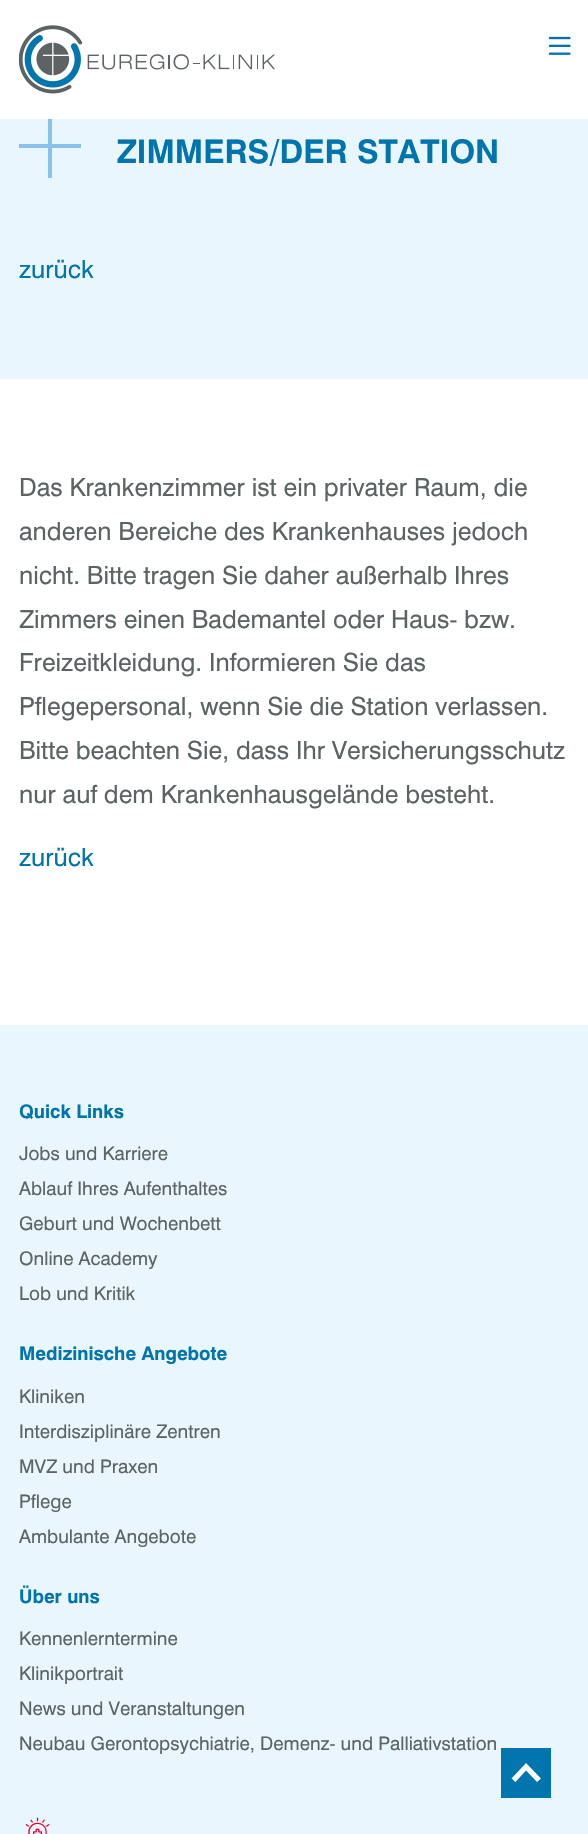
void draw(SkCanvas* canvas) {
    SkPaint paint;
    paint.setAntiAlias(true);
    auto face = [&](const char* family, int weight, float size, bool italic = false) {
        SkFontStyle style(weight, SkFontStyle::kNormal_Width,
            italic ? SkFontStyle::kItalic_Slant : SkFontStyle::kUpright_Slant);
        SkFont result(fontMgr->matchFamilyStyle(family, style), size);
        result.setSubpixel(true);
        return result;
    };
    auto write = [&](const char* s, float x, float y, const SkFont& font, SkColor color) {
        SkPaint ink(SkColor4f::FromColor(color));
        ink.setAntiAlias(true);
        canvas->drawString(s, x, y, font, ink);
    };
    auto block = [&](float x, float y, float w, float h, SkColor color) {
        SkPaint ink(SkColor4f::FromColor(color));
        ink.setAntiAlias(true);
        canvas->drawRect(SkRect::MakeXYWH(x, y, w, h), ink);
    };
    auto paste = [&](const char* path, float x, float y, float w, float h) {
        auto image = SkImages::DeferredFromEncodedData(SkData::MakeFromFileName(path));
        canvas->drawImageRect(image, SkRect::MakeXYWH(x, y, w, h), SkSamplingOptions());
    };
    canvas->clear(SK_ColorWHITE);
    block(0, 119, 588, 260, SkColorSetRGB(234, 246, 254));
    paint.setColor(SkColorSetRGB(134, 194, 235));
    canvas->drawPath(SkPathBuilder().moveTo(81, 148).lineTo(52, 148).lineTo(52, 178).lineTo(48, 178).lineTo(48, 148).lineTo(19, 148).lineTo(19, 144).lineTo(48, 144).lineTo(48, 115).lineTo(52, 115).lineTo(52, 144).lineTo(81, 144).close().detach(), paint);
    block(48, 115, 4, 4, SK_ColorWHITE);
    paste("pic1.png", 19, 25, 256, 69);
    paste("pic2.png", 548, 36, 23, 19);
    auto kFont1 = face("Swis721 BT", 700, 32.5f);
    write("ZIMMERS/DER STATION", 117, 163, kFont1, SkColorSetRGB(0, 116, 173));
    auto kFont2 = face("Swis721 BT", 400, 25);
    write("zurück", 19, 278, kFont2, SkColorSetRGB(0, 116, 173));
    write("Das Krankenzimmer ist ein privater Raum, die", 19, 496, kFont2, SkColorSetRGB(92, 99, 100));
    write("anderen Bereiche des Krankenhauses jedoch", 19, 540, kFont2, SkColorSetRGB(92, 99, 100));
    write("nicht. Bitte tragen Sie daher außerhalb Ihres", 19, 584, kFont2, SkColorSetRGB(92, 99, 100));
    write("Zimmers einen Bademantel oder Haus- bzw.", 19, 628, kFont2, SkColorSetRGB(92, 99, 100));
    write("Freizeitkleidung. Informieren Sie das", 19, 671, kFont2, SkColorSetRGB(92, 99, 100));
    write("Pflegepersonal, wenn Sie die Station verlassen.", 19, 715, kFont2, SkColorSetRGB(92, 99, 100));
    write("Bitte beachten Sie, dass Ihr Versicherungsschutz", 19, 759, kFont2, SkColorSetRGB(92, 99, 100));
    write("nur auf dem Krankenhausgelände besteht.", 19, 803, kFont2, SkColorSetRGB(92, 99, 100));
    write("zurück", 19, 866, kFont2, SkColorSetRGB(0, 116, 173));
    block(0, 1025, 588, 809, SkColorSetRGB(234, 246, 254));
    auto kFont3 = face("Swis721 BT", 700, 18.75f);
    write("Quick Links", 19, 1118, kFont3, SkColorSetRGB(0, 116, 173));
    auto kFont4 = face("Swis721 BT", 400, 18.75f);
    write("Jobs und Karriere", 19, 1160, kFont4, SkColorSetRGB(92, 99, 100));
    write("Ablauf Ihres Aufenthaltes", 19, 1195, kFont4, SkColorSetRGB(92, 99, 100));
    write("Geburt und Wochenbett", 19, 1230, kFont4, SkColorSetRGB(92, 99, 100));
    write("Online Academy", 19, 1265, kFont4, SkColorSetRGB(92, 99, 100));
    write("Lob und Kritik", 19, 1300, kFont4, SkColorSetRGB(92, 99, 100));
    write("Medizinische Angebote", 19, 1360, kFont3, SkColorSetRGB(0, 116, 173));
    write("Kliniken", 19, 1403, kFont4, SkColorSetRGB(92, 99, 100));
    write("Interdisziplinäre Zentren", 19, 1438, kFont4, SkColorSetRGB(92, 99, 100));
    write("MVZ und Praxen", 19, 1473, kFont4, SkColorSetRGB(92, 99, 100));
    write("Pflege", 19, 1508, kFont4, SkColorSetRGB(92, 99, 100));
    write("Ambulante Angebote", 19, 1543, kFont4, SkColorSetRGB(92, 99, 100));
    write("Über uns", 19, 1603, kFont3, SkColorSetRGB(0, 116, 173));
    write("Kennenlerntermine", 19, 1645, kFont4, SkColorSetRGB(92, 99, 100));
    write("Klinikportrait", 19, 1680, kFont4, SkColorSetRGB(92, 99, 100));
    write("News und Veranstaltungen", 19, 1715, kFont4, SkColorSetRGB(92, 99, 100));
    write("Neubau Gerontopsychiatrie, Demenz- und Palliativstation", 19, 1750, kFont4, SkColorSetRGB(92, 99, 100));
    paste("pic3.png", 25, 1817, 25, 17);
    block(501, 1748, 50, 50, SkColorSetRGB(0, 117, 174));
    paint.setColor(SK_ColorWHITE);
    canvas->drawPath(SkPathBuilder().moveTo(541, 1778.5f).lineTo(537, 1782).lineTo(526, 1770.5f).lineTo(515.5f, 1782).lineTo(511.5f, 1778.5f).lineTo(526, 1763).close().detach(), paint);
}
